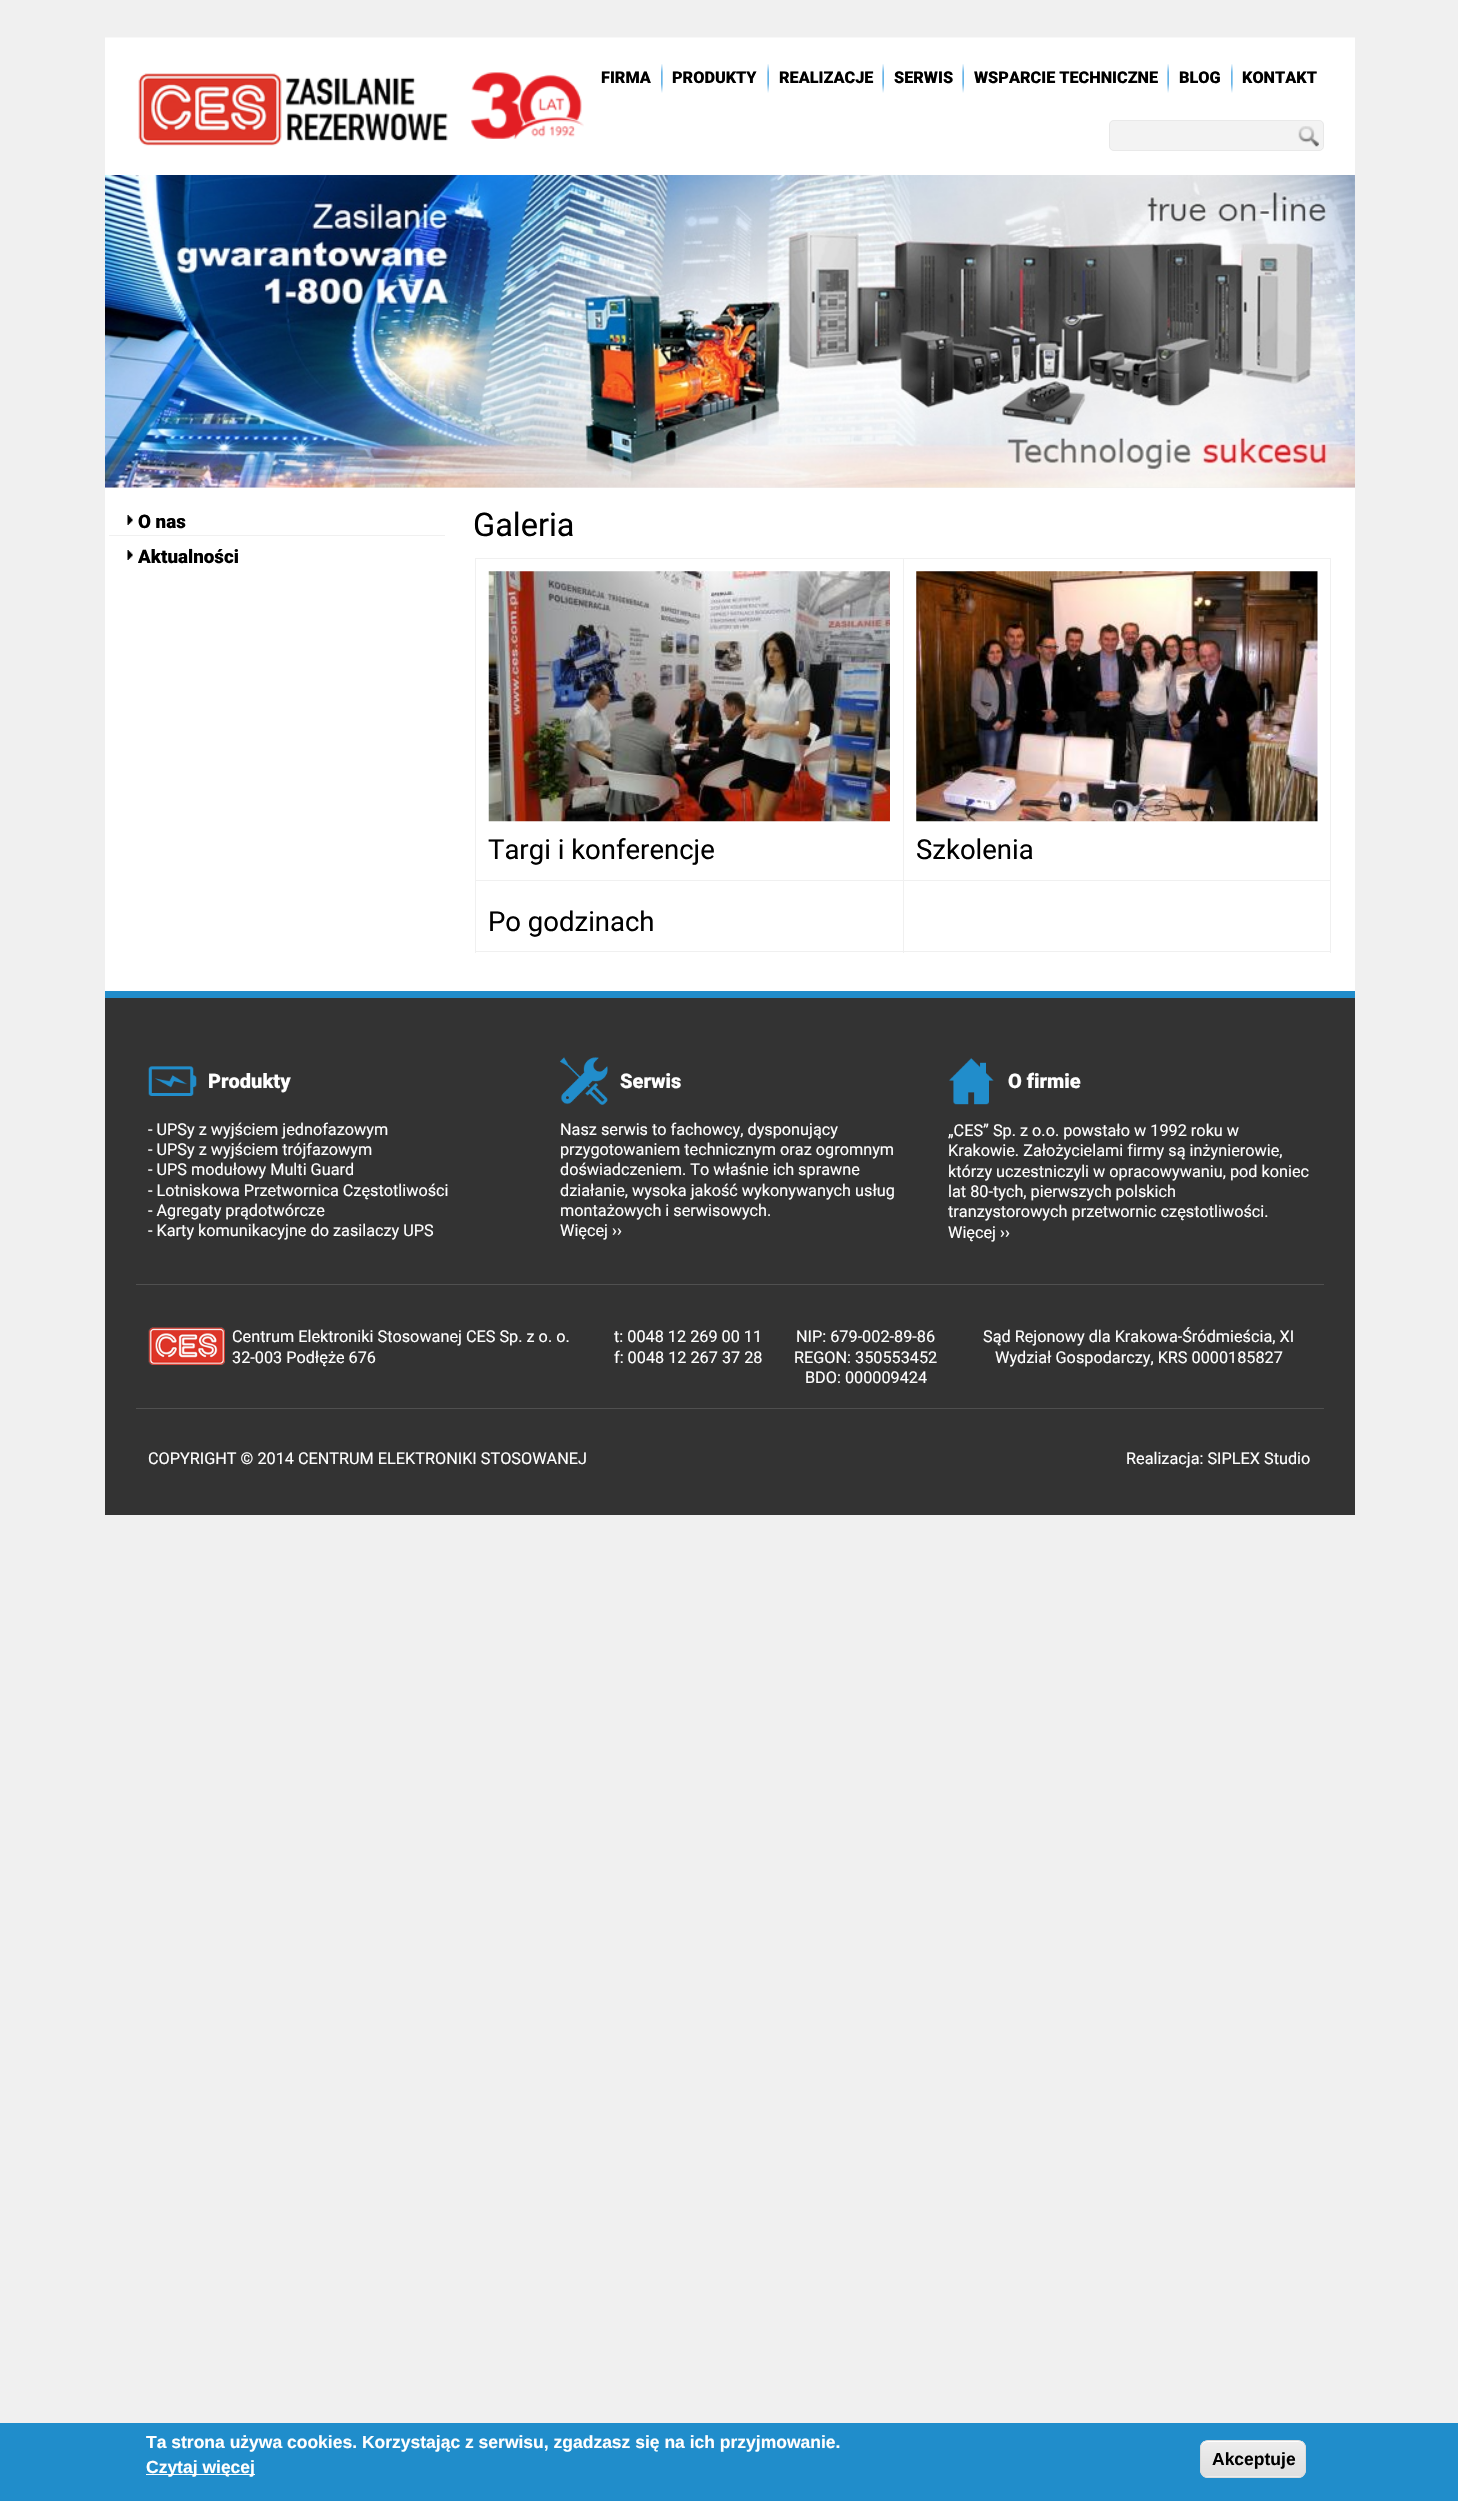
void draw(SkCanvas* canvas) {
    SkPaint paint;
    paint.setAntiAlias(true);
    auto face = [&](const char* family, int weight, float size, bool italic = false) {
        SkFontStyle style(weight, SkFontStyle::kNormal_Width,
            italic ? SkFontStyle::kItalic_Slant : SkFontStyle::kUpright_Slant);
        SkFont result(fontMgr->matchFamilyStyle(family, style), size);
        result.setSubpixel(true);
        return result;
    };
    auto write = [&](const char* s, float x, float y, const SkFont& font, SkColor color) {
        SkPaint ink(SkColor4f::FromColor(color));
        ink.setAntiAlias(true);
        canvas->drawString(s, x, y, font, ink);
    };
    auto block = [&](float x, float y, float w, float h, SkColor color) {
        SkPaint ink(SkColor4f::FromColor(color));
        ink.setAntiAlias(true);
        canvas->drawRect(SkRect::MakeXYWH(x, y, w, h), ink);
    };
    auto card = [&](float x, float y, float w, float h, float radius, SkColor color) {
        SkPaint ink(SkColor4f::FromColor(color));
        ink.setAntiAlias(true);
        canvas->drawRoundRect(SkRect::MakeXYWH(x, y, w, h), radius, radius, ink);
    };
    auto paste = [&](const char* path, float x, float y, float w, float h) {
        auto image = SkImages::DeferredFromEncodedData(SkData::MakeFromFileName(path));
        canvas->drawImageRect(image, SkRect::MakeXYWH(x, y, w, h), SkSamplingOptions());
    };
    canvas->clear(SkColorSetRGB(240, 240, 240));
    paste("pic1.png", 105, 37, 1250, 138);
    paste("pic2.png", 138, 73, 310, 73);
    auto kFont1 = face("Roboto", 900, 16.25f);
    write("FIRMA", 601, 83, kFont1, SK_ColorBLACK);
    paste("pic3.png", 661, 64, 2, 29);
    write("PRODUKTY", 672, 83, kFont1, SK_ColorBLACK);
    paste("pic4.png", 767, 64, 2, 29);
    write("REALIZACJE", 779, 83, kFont1, SK_ColorBLACK);
    paste("pic4.png", 882, 64, 2, 29);
    write("SERWIS", 894, 83, kFont1, SK_ColorBLACK);
    paste("pic4.png", 962, 64, 2, 29);
    write("WSPARCIE TECHNICZNE", 974, 83, kFont1, SK_ColorBLACK);
    paste("pic4.png", 1167, 64, 2, 29);
    write("BLOG", 1179, 83, kFont1, SK_ColorBLACK);
    paste("pic3.png", 1231, 64, 2, 29);
    write("KONTAKT", 1242, 83, kFont1, SK_ColorBLACK);
    card(1109, 120, 215, 31, 5, SkColorSetRGB(243, 243, 243));
    paint.setStyle(SkPaint::kStroke_Style);
    paint.setStrokeWidth(1);
    paint.setColor(SkColorSetARGB(201, 229, 229, 229));
    canvas->drawRoundRect(SkRect::MakeXYWH(1109.5f, 120.5f, 214, 30), 4.5f, 4.5f, paint);
    paste("pic5.png", 1298, 126, 21, 21);
    paste("pic6.png", 105, 175, 1250, 313);
    block(105, 488, 1250, 503, SK_ColorWHITE);
    paste("pic7.png", 127, 515, 6, 10);
    auto kFont2 = face("Roboto", 900, 18.75f);
    write("O nas", 138, 528, kFont2, SK_ColorBLACK);
    block(109, 535, 336, 1, SkColorSetRGB(240, 240, 240));
    paste("pic7.png", 127, 550, 6, 10);
    write("Aktualności", 138, 563, kFont2, SK_ColorBLACK);
    auto kFont3 = face("Roboto", 400, 32.5f);
    write("Galeria", 473, 536, kFont3, SK_ColorBLACK);
    block(903, 558, 428, 1, SkColorSetRGB(240, 240, 240));
    block(903, 880, 428, 1, SkColorSetRGB(240, 240, 240));
    block(1330, 880, 1, 73, SkColorSetRGB(240, 240, 240));
    block(903, 951, 428, 1, SkColorSetRGB(240, 240, 240));
    block(903, 880, 1, 73, SkColorSetRGB(240, 240, 240));
    block(475, 880, 429, 1, SkColorSetRGB(240, 240, 240));
    block(903, 558, 1, 323, SkColorSetRGB(240, 240, 240));
    block(475, 558, 429, 1, SkColorSetRGB(240, 240, 240));
    block(475, 951, 429, 1, SkColorSetRGB(240, 240, 240));
    block(475, 880, 1, 73, SkColorSetRGB(240, 240, 240));
    block(475, 558, 1, 323, SkColorSetRGB(240, 240, 240));
    paste("pic8.png", 488, 571, 402, 251);
    auto kFont4 = face("Roboto", 400, 27.5f);
    write("Targi i konferencje", 488, 859, kFont4, SK_ColorBLACK);
    block(1330, 558, 1, 323, SkColorSetRGB(240, 240, 240));
    paste("pic9.png", 916, 571, 402, 251);
    write("Szkolenia", 916, 859, kFont4, SK_ColorBLACK);
    write("Po godzinach", 488, 931, kFont4, SK_ColorBLACK);
    block(105, 998, 1250, 517, SkColorSetRGB(51, 51, 51));
    block(105, 991, 1250, 7, SkColorSetRGB(33, 140, 202));
    block(136, 1284, 1188, 1, SkColorSetRGB(80, 80, 80));
    paste("pic10.png", 148, 1066, 49, 30);
    auto kFont5 = face("Roboto", 900, 20);
    write("Produkty", 208, 1088, kFont5, SK_ColorWHITE);
    auto kFont6 = face("Roboto", 400, 16.25f);
    write("- UPSy z wyjściem jednofazowym", 148, 1135, kFont6, SK_ColorWHITE);
    write("- UPSy z wyjściem trójfazowym", 148, 1155, kFont6, SK_ColorWHITE);
    write("- UPS modułowy Multi Guard", 148, 1175, kFont6, SK_ColorWHITE);
    write("- Lotniskowa Przetwornica Częstotliwości", 148, 1196, kFont6, SK_ColorWHITE);
    write("- Agregaty prądotwórcze", 148, 1216, kFont6, SK_ColorWHITE);
    write("- Karty komunikacyjne do zasilaczy UPS", 148, 1236, kFont6, SK_ColorWHITE);
    paste("pic11.png", 560, 1057, 48, 48);
    write("Serwis", 620, 1088, kFont5, SK_ColorWHITE);
    write("Nasz serwis to fachowcy, dysponujący", 560, 1135, kFont6, SK_ColorWHITE);
    write("przygotowaniem technicznym oraz ogromnym", 560, 1155, kFont6, SK_ColorWHITE);
    write("doświadczeniem. To właśnie ich sprawne", 560, 1175, kFont6, SK_ColorWHITE);
    write("działanie, wysoka jakość wykonywanych usług", 560, 1196, kFont6, SK_ColorWHITE);
    write("montażowych i serwisowych.", 560, 1216, kFont6, SK_ColorWHITE);
    write("Więcej ››", 560, 1236, kFont6, SK_ColorWHITE);
    paste("pic12.png", 949, 1058, 45, 47);
    write("O firmie", 1008, 1088, kFont5, SK_ColorWHITE);
    write("„CES” Sp. z o.o. powstało w 1992 roku w", 948, 1136, kFont6, SK_ColorWHITE);
    write("Krakowie. Założycielami firmy są inżynierowie,", 948, 1156, kFont6, SK_ColorWHITE);
    write("którzy uczestniczyli w opracowywaniu, pod koniec", 948, 1177, kFont6, SK_ColorWHITE);
    write("lat 80-tych, pierwszych polskich", 948, 1197, kFont6, SK_ColorWHITE);
    write("tranzystorowych przetwornic częstotliwości.", 948, 1217, kFont6, SK_ColorWHITE);
    write("Więcej ››", 948, 1238, kFont6, SK_ColorWHITE);
    paste("pic13.png", 148, 1327, 77, 38);
    write("Centrum Elektroniki Stosowanej CES Sp. z o. o.", 232, 1342, kFont6, SK_ColorWHITE);
    write("32-003 Podłęże 676", 232, 1363, kFont6, SK_ColorWHITE);
    write("t: 0048 12 269 00 11", 614, 1342, kFont6, SK_ColorWHITE);
    write("f: 0048 12 267 37 28", 614, 1363, kFont6, SK_ColorWHITE);
    write("NIP: 679-002-89-86", 796, 1342, kFont6, SK_ColorWHITE);
    write("REGON: 350553452", 794, 1363, kFont6, SK_ColorWHITE);
    write("BDO: 000009424", 805, 1383, kFont6, SK_ColorWHITE);
    write("Sąd Rejonowy dla Krakowa-Śródmieścia, XI", 983, 1342, kFont6, SK_ColorWHITE);
    write("Wydział Gospodarczy, KRS 0000185827", 995, 1363, kFont6, SK_ColorWHITE);
    block(136, 1408, 594, 1, SkColorSetRGB(80, 80, 80));
    write("COPYRIGHT © 2014 CENTRUM ELEKTRONIKI STOSOWANEJ", 148, 1464, kFont6, SK_ColorWHITE);
    block(730, 1408, 594, 1, SkColorSetRGB(79, 79, 79));
    write("Realizacja: SIPLEX Studio", 1126, 1464, kFont6, SK_ColorWHITE);
    block(0, 2423, 1458, 78, SkColorSetRGB(32, 141, 203));
    auto kFont7 = face("Liberation Sans", 700, 17.5f);
    write("Ta strona używa cookies. Korzystając z serwisu, zgadzasz się na ich przyjmowanie.", 146, 2448, kFont7, SK_ColorWHITE);
    block(146, 2474, 109, 1, SK_ColorWHITE);
    write("Czytaj więcej", 146, 2473, kFont7, SK_ColorWHITE);
    canvas->save();
    canvas->clipPath(SkPathBuilder().moveTo(1208, 2440).lineTo(1298, 2440).cubicTo(1302.5f, 2440, 1306, 2443.5f, 1306, 2448).lineTo(1306, 2470).cubicTo(1306, 2474.5f, 1302.5f, 2478, 1298, 2478).lineTo(1208, 2478).cubicTo(1203.5f, 2478, 1200, 2474.5f, 1200, 2470).lineTo(1200, 2448).cubicTo(1200, 2443.5f, 1203.5f, 2440, 1208, 2440).close().detach(), true);
    paint.setStyle(SkPaint::kFill_Style);
    {
        const SkColor colors[] = {SkColorSetRGB(237, 237, 237), SkColorSetRGB(223, 223, 223)};
        const float stops[] = {0.05f, 1};
        const SkPoint ends[] = {{1253, 2441}, {1253, 2476}};
        paint.setShader(SkGradientShader::MakeLinear(ends, colors, stops, 2, SkTileMode::kClamp));
        paint.setAlpha(255);
    }
    canvas->drawRect(SkRect::MakeXYWH(1200, 2441, 106, 35), paint);
    {
        const SkColor colors[] = {SkColorSetRGB(237, 237, 237), SkColorSetRGB(223, 223, 223)};
        const float stops[] = {0.05f, 1};
        const SkPoint ends[] = {{1253, 2476}, {1253, 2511}};
        paint.setShader(SkGradientShader::MakeLinear(ends, colors, stops, 2, SkTileMode::kClamp));
        paint.setAlpha(255);
    }
    canvas->drawRect(SkRect::MakeXYWH(1200, 2476, 106, 2), paint);
    canvas->restore();
    paint.setShader(nullptr);
    paint.setColor(SK_ColorWHITE);
    canvas->drawPath(SkPathBuilder().moveTo(1208, 2442).lineTo(1299, 2442).cubicTo(1302, 2442, 1305, 2445, 1305, 2449).cubicTo(1305, 2437, 1293, 2441, 1284, 2441).lineTo(1222, 2441).cubicTo(1213, 2441, 1201, 2437, 1201, 2449).cubicTo(1201, 2445, 1204, 2442, 1208, 2442).close().detach(), paint);
    paint.setStyle(SkPaint::kStroke_Style);
    paint.setColor(SkColorSetRGB(220, 220, 220));
    canvas->drawRoundRect(SkRect::MakeXYWH(1200.5f, 2440.5f, 105, 37), 7.5f, 7.5f, paint);
    write("Akceptuje", 1212, 2465, kFont7, SK_ColorBLACK);
}
